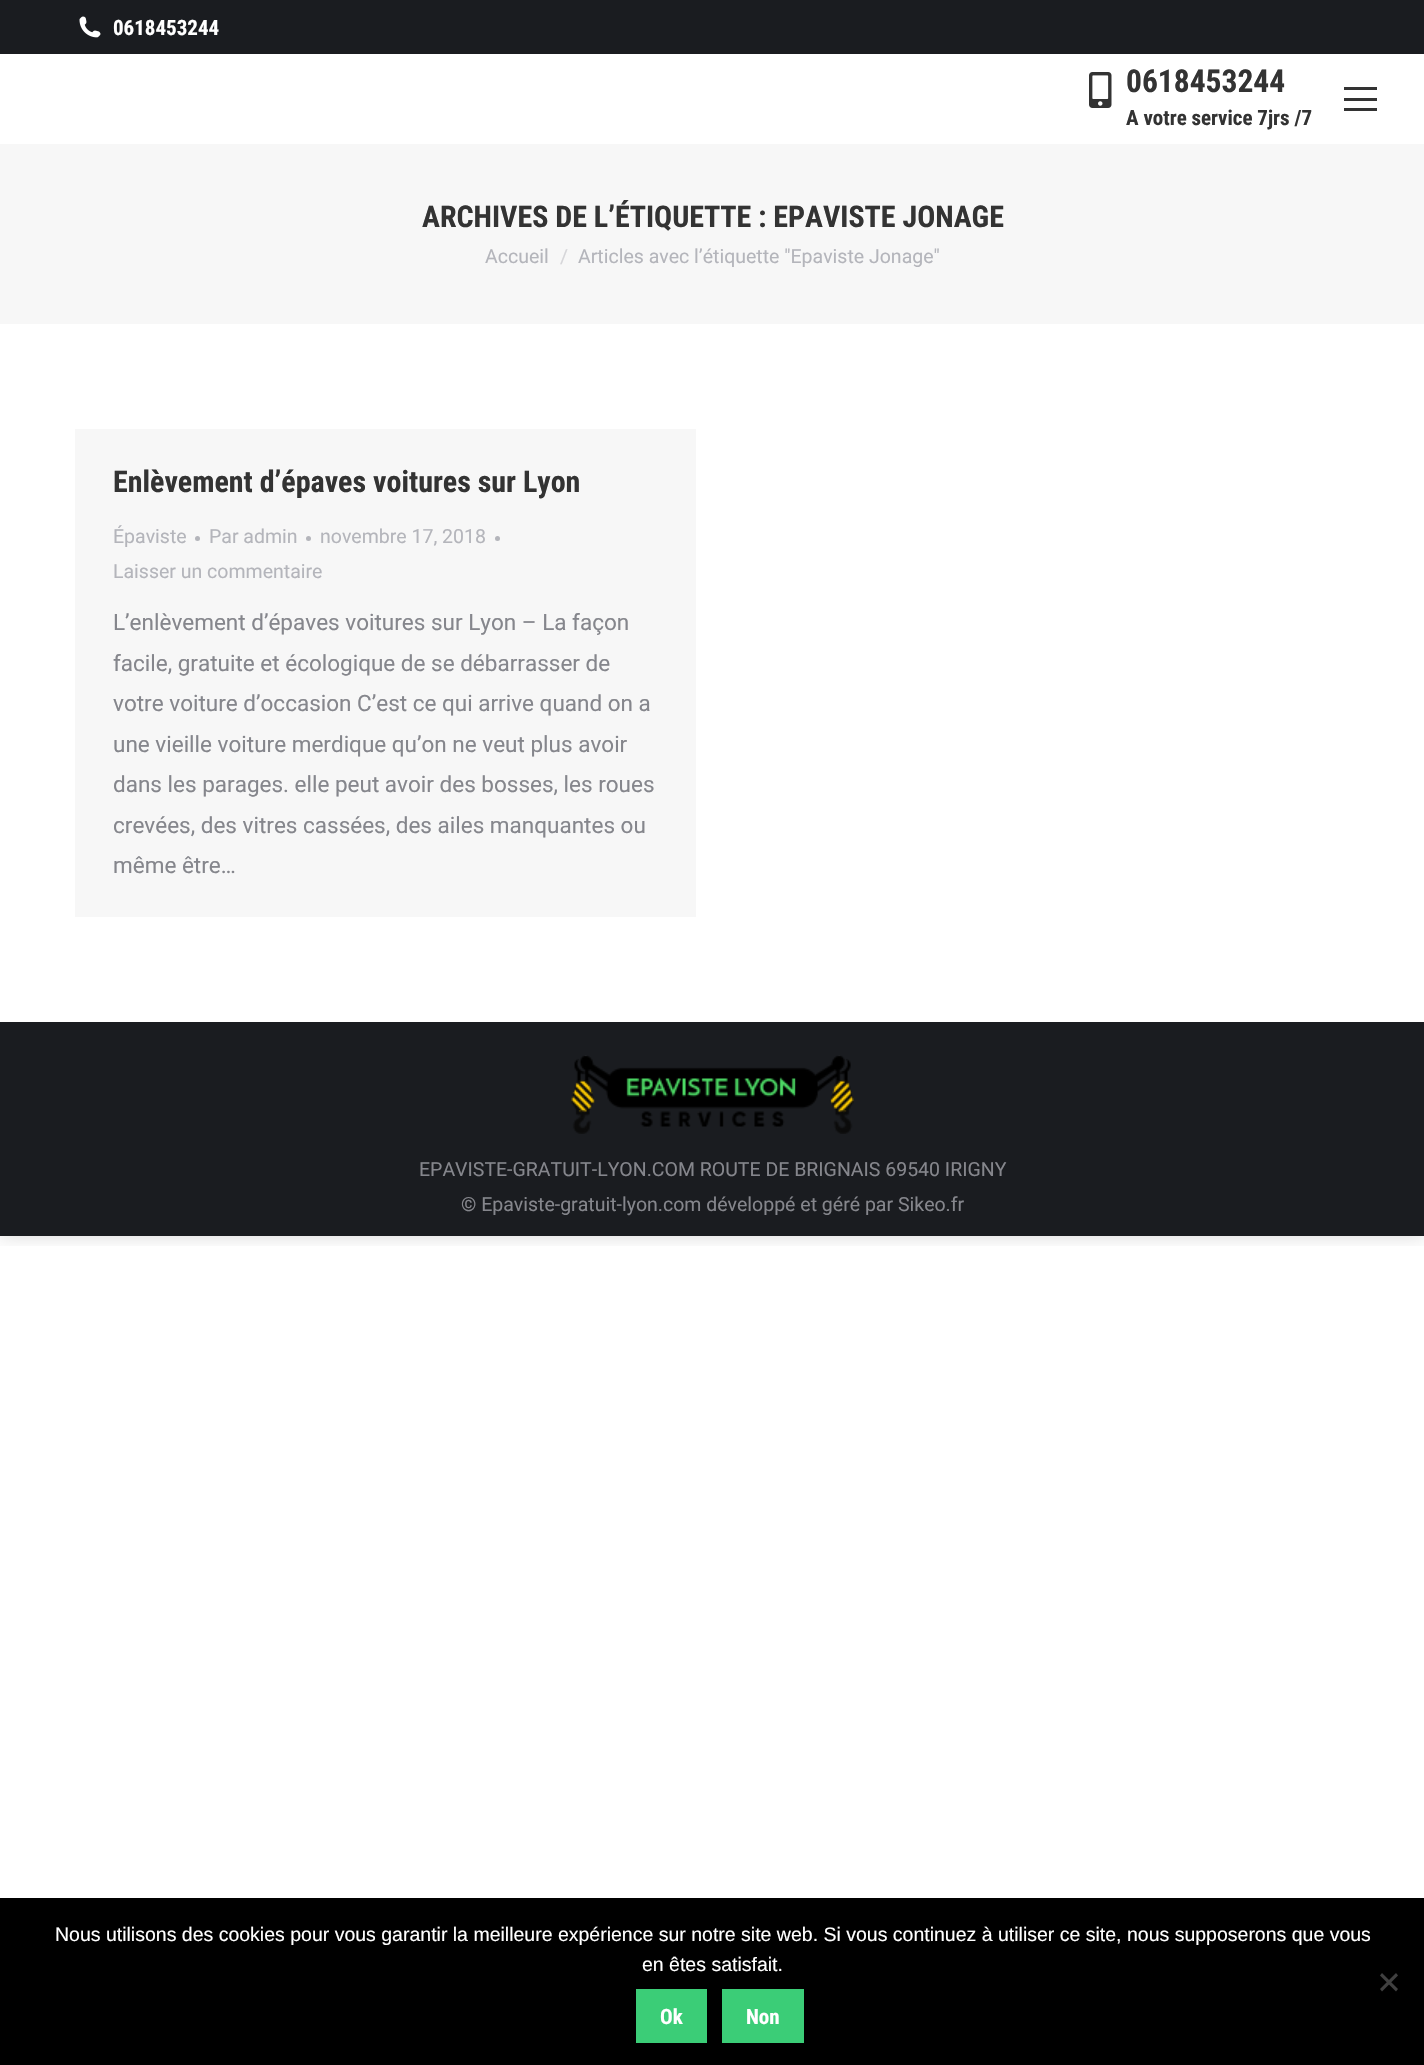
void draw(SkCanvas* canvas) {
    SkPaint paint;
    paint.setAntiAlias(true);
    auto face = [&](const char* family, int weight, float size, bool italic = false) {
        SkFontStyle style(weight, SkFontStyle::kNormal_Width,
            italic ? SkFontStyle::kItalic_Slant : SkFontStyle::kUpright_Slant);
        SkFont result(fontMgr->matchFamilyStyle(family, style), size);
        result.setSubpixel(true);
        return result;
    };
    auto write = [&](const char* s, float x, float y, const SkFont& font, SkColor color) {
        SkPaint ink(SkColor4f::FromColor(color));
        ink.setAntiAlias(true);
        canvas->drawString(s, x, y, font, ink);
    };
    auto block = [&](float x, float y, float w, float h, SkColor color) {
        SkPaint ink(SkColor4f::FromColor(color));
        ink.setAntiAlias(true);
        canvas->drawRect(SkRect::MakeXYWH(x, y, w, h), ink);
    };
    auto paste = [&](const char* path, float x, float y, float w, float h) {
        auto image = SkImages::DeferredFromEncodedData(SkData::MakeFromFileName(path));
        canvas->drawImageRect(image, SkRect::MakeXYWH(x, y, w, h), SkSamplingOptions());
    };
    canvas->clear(SK_ColorWHITE);
    canvas->save();
    canvas->clipRect(SkRect::MakeXYWH(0, 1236, 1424, 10));
    paint.setColor(SkColorSetARGB(38, 0, 0, 0));
    paint.setMaskFilter(SkMaskFilter::MakeBlur(kNormal_SkBlurStyle, 9));
    canvas->drawRect(SkRect::MakeXYWH(0, 0, 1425, 1236), paint);
    paint.setMaskFilter(nullptr);
    canvas->restore();
    block(0, 0, 1424, 54, SkColorSetRGB(26, 28, 32));
    paste("pic1.png", 79, 16, 22, 22);
    auto kFont1 = face("Roboto Condensed", 700, 21);
    write("0618453244", 113, 35, kFont1, SK_ColorWHITE);
    paste("pic2.png", 1089, 72, 23, 36);
    auto kFont2 = face("Roboto Condensed", 700, 31.5f);
    write("0618453244", 1126, 92, kFont2, SkColorSetRGB(51, 51, 51));
    write("A votre service 7jrs /7", 1126, 125, kFont1, SkColorSetRGB(51, 51, 51));
    block(1344, 87, 33, 3, SkColorSetRGB(51, 51, 51));
    block(1344, 98, 33, 3, SkColorSetRGB(51, 51, 51));
    block(1344, 108, 33, 3, SkColorSetRGB(51, 51, 51));
    block(0, 144, 1424, 180, SkColorSetRGB(247, 247, 247));
    auto kFont3 = face("Roboto Condensed", 700, 30);
    write("ARCHIVES DE L’ÉTIQUETTE : EPAVISTE JONAGE", 422, 227, kFont3, SkColorSetRGB(51, 51, 51));
    auto kFont4 = face("Roboto", 400, 19.5f);
    write("Accueil", 485, 263, kFont4, SkColorSetRGB(180, 181, 187));
    write("/", 560, 263, kFont4, SkColorSetRGB(214, 214, 217));
    write("Articles avec l’étiquette \"Epaviste Jonage\"", 578, 263, kFont4, SkColorSetRGB(180, 181, 187));
    block(75, 429, 621, 488, SkColorSetRGB(247, 247, 247));
    write("Enlèvement d’épaves voitures sur Lyon", 113, 492, kFont3, SkColorSetRGB(51, 51, 51));
    write("Épaviste", 113, 543, kFont4, SkColorSetRGB(180, 181, 187));
    paint.setColor(SkColorSetRGB(180, 181, 187));
    canvas->drawCircle(197.5f, 538.5f, 2.5f, paint);
    write("Par admin", 209, 543, kFont4, SkColorSetRGB(180, 181, 187));
    canvas->drawCircle(308.5f, 538.5f, 2.5f, paint);
    write("novembre 17, 2018", 320, 543, kFont4, SkColorSetRGB(180, 181, 187));
    canvas->drawCircle(497.5f, 538.5f, 2.5f, paint);
    write("Laisser un commentaire", 113, 578, kFont4, SkColorSetRGB(180, 181, 187));
    auto kFont5 = face("Roboto", 400, 22.5f);
    write("L’enlèvement d’épaves voitures sur Lyon – La façon", 113, 630, kFont5, SkColorSetRGB(133, 134, 140));
    write("facile, gratuite et écologique de se débarrasser de", 113, 671, kFont5, SkColorSetRGB(133, 134, 140));
    write("votre voiture d’occasion C’est ce qui arrive quand on a", 113, 711, kFont5, SkColorSetRGB(133, 134, 140));
    write("une vieille voiture merdique qu’on ne veut plus avoir", 113, 752, kFont5, SkColorSetRGB(133, 134, 140));
    write("dans les parages. elle peut avoir des bosses, les roues", 113, 792, kFont5, SkColorSetRGB(133, 134, 140));
    write("crevées, des vitres cassées, des ailes manquantes ou", 113, 833, kFont5, SkColorSetRGB(133, 134, 140));
    write("même être…", 113, 873, kFont5, SkColorSetRGB(133, 134, 140));
    block(0, 1022, 1424, 214, SkColorSetRGB(26, 28, 32));
    paste("pic3.png", 571, 1055, 283, 79);
    write("EPAVISTE-GRATUIT-LYON.COM ROUTE DE BRIGNAIS 69540 IRIGNY", 419, 1176, kFont4, SkColorSetRGB(133, 134, 140));
    write("© Epaviste-gratuit-lyon.com développé et géré par Sikeo.fr", 461, 1211, kFont4, SkColorSetRGB(133, 134, 140));
    block(0, 1898, 1424, 167, SK_ColorBLACK);
    auto kFont6 = face("Liberation Sans", 400, 19.5f);
    write("Nous utilisons des cookies pour vous garantir la meilleure expérience sur notre site web. Si vous continuez à utiliser ce site, nous supposerons que vous", 55, 1941, kFont6, SK_ColorWHITE);
    write("en êtes satisfait.", 642, 1971, kFont6, SK_ColorWHITE);
    paint.setColor(SkColorSetRGB(64, 64, 64));
    canvas->drawPath(SkPathBuilder().moveTo(1396, 1973).lineTo(1398, 1975.5f).lineTo(1382, 1991.5f).lineTo(1380, 1989).close().detach(), paint);
    canvas->drawPath(SkPathBuilder().moveTo(1380, 1975.5f).lineTo(1382, 1973).lineTo(1398, 1989).lineTo(1396, 1991.5f).close().detach(), paint);
    block(636, 1989, 71, 54, SkColorSetRGB(59, 205, 119));
    write("Ok", 660, 2024, kFont1, SK_ColorWHITE);
    block(722, 1989, 82, 54, SkColorSetRGB(59, 205, 119));
    write("Non", 746, 2024, kFont1, SK_ColorWHITE);
}
